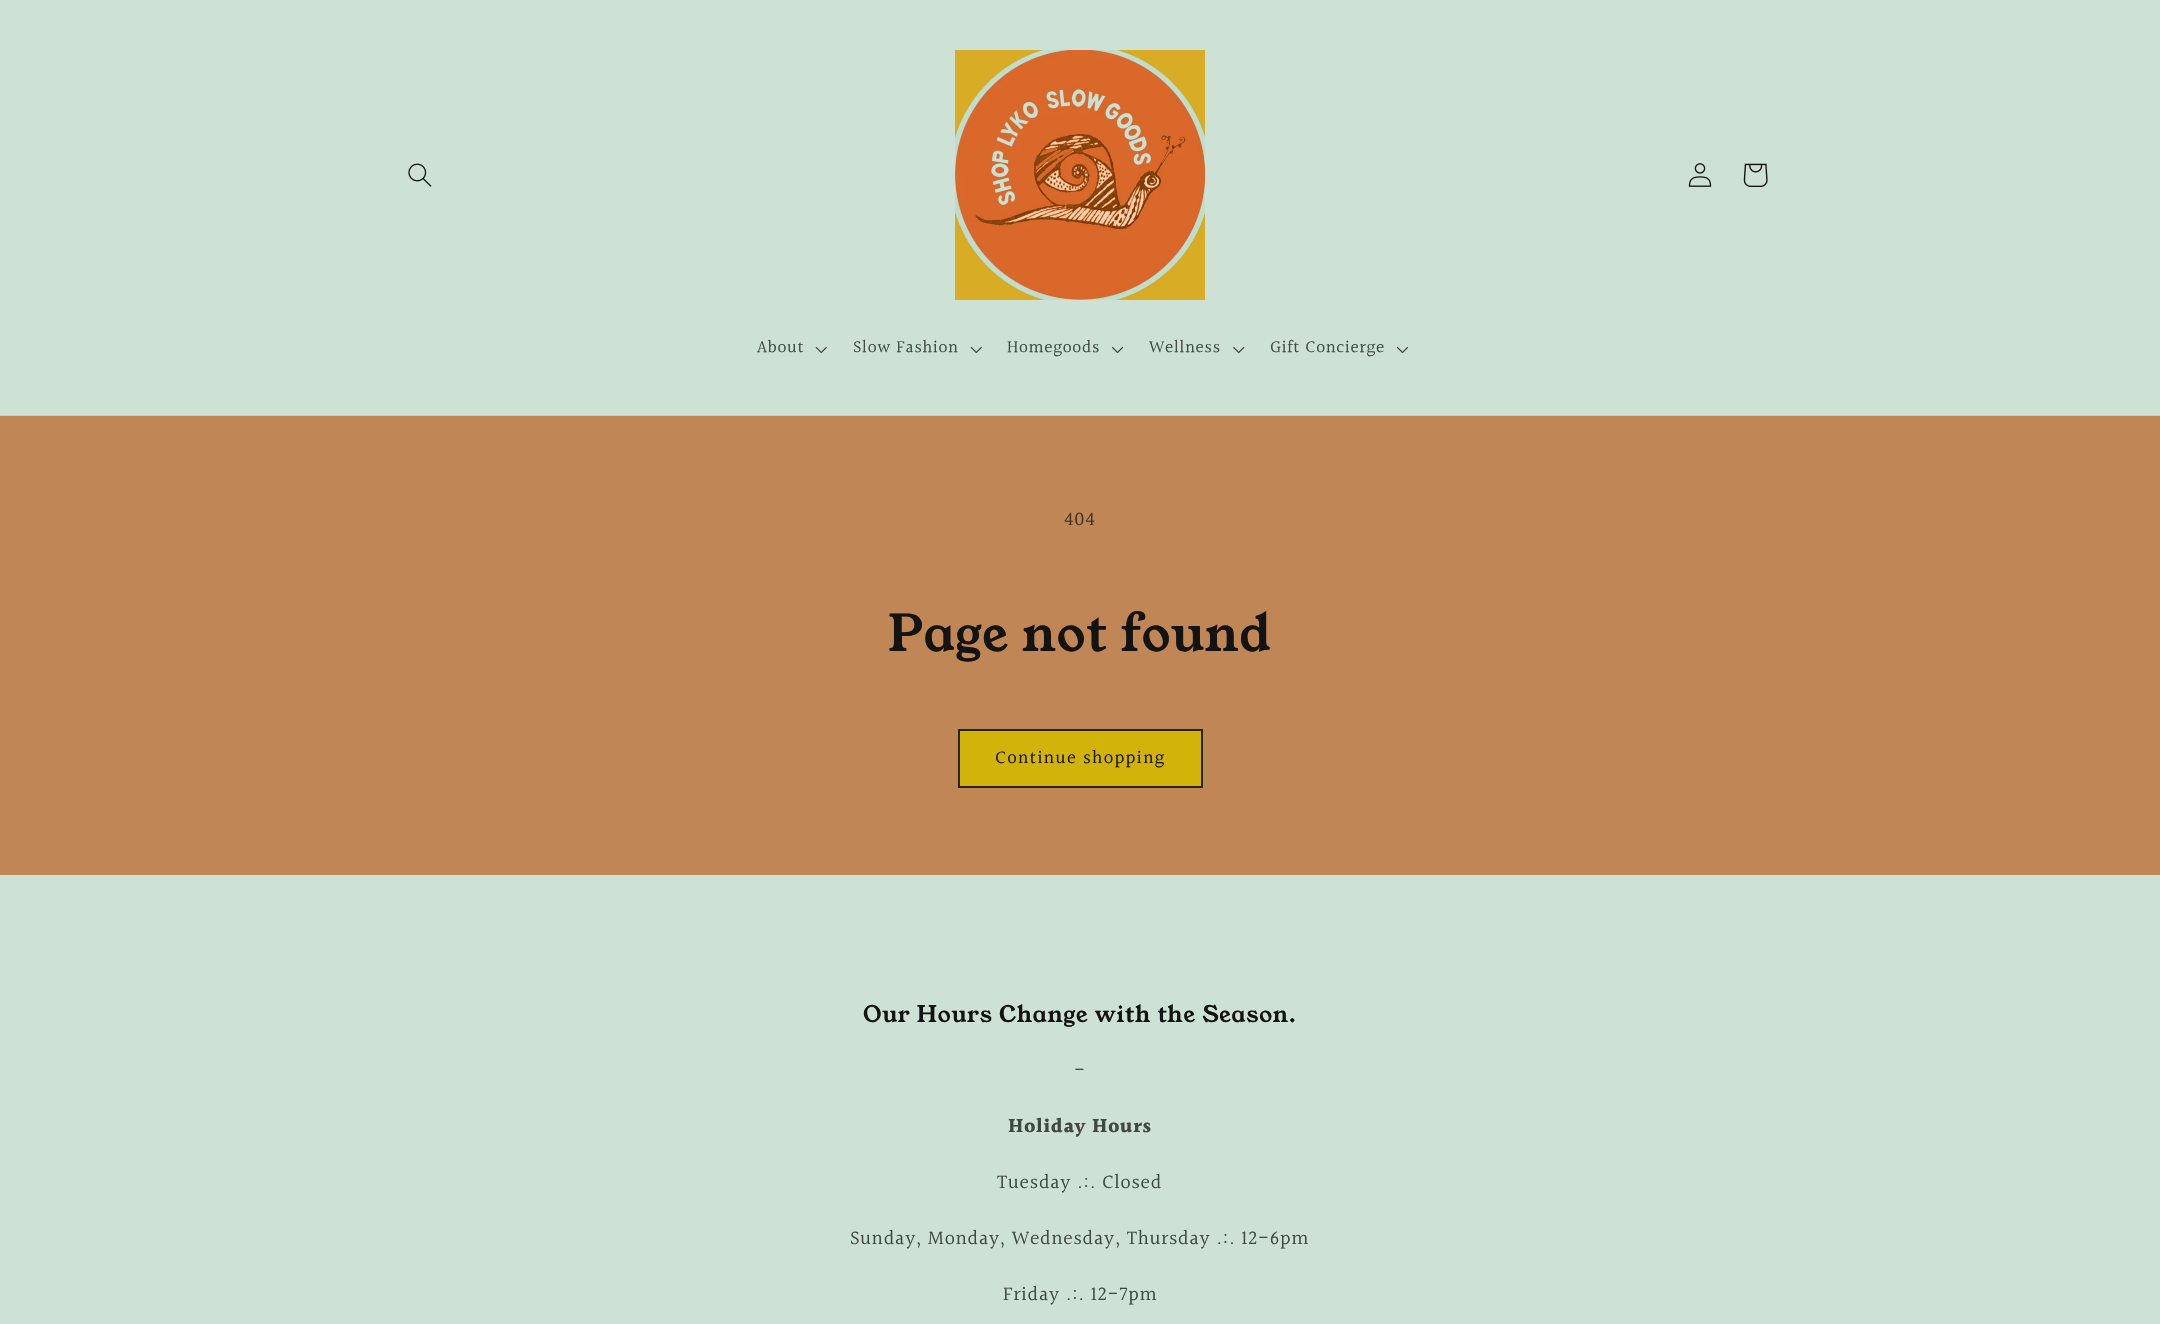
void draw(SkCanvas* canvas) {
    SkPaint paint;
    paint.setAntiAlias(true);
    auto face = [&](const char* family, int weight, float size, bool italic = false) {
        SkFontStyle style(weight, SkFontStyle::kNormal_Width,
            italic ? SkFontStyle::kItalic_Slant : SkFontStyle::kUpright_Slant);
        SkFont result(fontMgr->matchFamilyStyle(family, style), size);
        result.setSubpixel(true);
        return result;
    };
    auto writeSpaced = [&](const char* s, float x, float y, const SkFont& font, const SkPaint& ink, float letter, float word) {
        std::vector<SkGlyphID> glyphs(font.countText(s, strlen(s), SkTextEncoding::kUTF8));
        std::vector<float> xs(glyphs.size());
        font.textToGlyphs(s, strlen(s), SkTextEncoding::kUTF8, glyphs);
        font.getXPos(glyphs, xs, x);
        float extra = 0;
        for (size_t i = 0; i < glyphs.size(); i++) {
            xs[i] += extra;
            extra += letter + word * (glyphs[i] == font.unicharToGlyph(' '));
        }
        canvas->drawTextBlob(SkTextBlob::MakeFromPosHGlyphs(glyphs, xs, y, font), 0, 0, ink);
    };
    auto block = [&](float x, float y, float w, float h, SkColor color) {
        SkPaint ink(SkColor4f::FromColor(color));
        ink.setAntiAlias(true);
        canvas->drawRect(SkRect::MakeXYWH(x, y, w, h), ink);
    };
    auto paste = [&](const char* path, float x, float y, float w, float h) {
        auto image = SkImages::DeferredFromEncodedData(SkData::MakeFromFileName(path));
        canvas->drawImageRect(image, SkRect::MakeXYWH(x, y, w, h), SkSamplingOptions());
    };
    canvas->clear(SkColorSetRGB(193, 134, 86));
    block(0, 0, 2160, 415, SkColorSetRGB(205, 226, 213));
    block(0, 415, 2160, 1, SkColorSetRGB(190, 209, 197));
    paste("pic1.png", 408, 163, 24, 24);
    paste("pic2.png", 955, 50, 250, 250);
    paste("pic3.png", 1688, 163, 24, 24);
    paste("pic4.png", 1743, 163, 25, 24);
    auto kFont1 = face("Halant", 400, 17.5f);
    paint.setColor(SkColorSetRGB(65, 71, 67));
    writeSpaced("About", 757, 353, kFont1, paint, 0.75f, 0);
    paste("pic5.png", 815, 346, 12, 8);
    writeSpaced("Slow Fashion", 853, 353, kFont1, paint, 0.75f, 0);
    paste("pic5.png", 970, 346, 12, 8);
    writeSpaced("Homegoods", 1007, 353, kFont1, paint, 0.75f, 0);
    paste("pic6.png", 1111, 346, 13, 8);
    writeSpaced("Wellness", 1149, 353, kFont1, paint, 0.75f, 0);
    paste("pic7.png", 1233, 346, 12, 8);
    writeSpaced("Gift Concierge", 1270, 353, kFont1, paint, 0.75f, 0);
    paste("pic6.png", 1396, 346, 13, 8);
    auto kFont2 = face("Halant", 400, 20);
    paint.setColor(SkColorSetRGB(62, 48, 35));
    writeSpaced("404", 1064, 526, kFont2, paint, 0.75f, 0);
    auto kFont3 = face("Young Serif", 400, 50);
    paint.setColor(SkColorSetRGB(18, 19, 18));
    writeSpaced("Page not found", 888, 651, kFont3, paint, 0.75f, 0);
    block(960, 731, 241, 55, SkColorSetRGB(209, 179, 9));
    paint.setStyle(SkPaint::kStroke_Style);
    paint.setStrokeWidth(2);
    paint.setColor(SkColorSetRGB(37, 35, 17));
    canvas->drawRect(SkRect::MakeXYWH(959, 730, 243, 57), paint);
    auto kFont4 = face("Halant", 400, 18.75f);
    paint.setStyle(SkPaint::kFill_Style);
    paint.setColor(SkColorSetRGB(18, 19, 18));
    writeSpaced("Continue shopping", 995, 764, kFont4, paint, 1.25f, 0);
    block(0, 875, 2160, 449, SkColorSetRGB(205, 226, 213));
    auto kFont5 = face("Young Serif", 400, 22.5f);
    writeSpaced("Our Hours Change with the Season.", 863, 1022, kFont5, paint, 0.75f, 0);
    paint.setColor(SkColorSetRGB(65, 71, 67));
    writeSpaced("-", 1074, 1077, kFont2, paint, 0.75f, 0);
    auto kFont6 = face("Halant", 700, 20);
    writeSpaced("Holiday Hours", 1008, 1133, kFont6, paint, 0.75f, 0);
    writeSpaced("Tuesday .:. Closed", 997, 1189, kFont2, paint, 0.75f, 0);
    writeSpaced("Sunday, Monday, Wednesday, Thursday .:. 12-6pm", 850, 1245, kFont2, paint, 0.75f, 0);
    writeSpaced("Friday .:. 12-7pm", 1003, 1301, kFont2, paint, 0.75f, 0);
}
